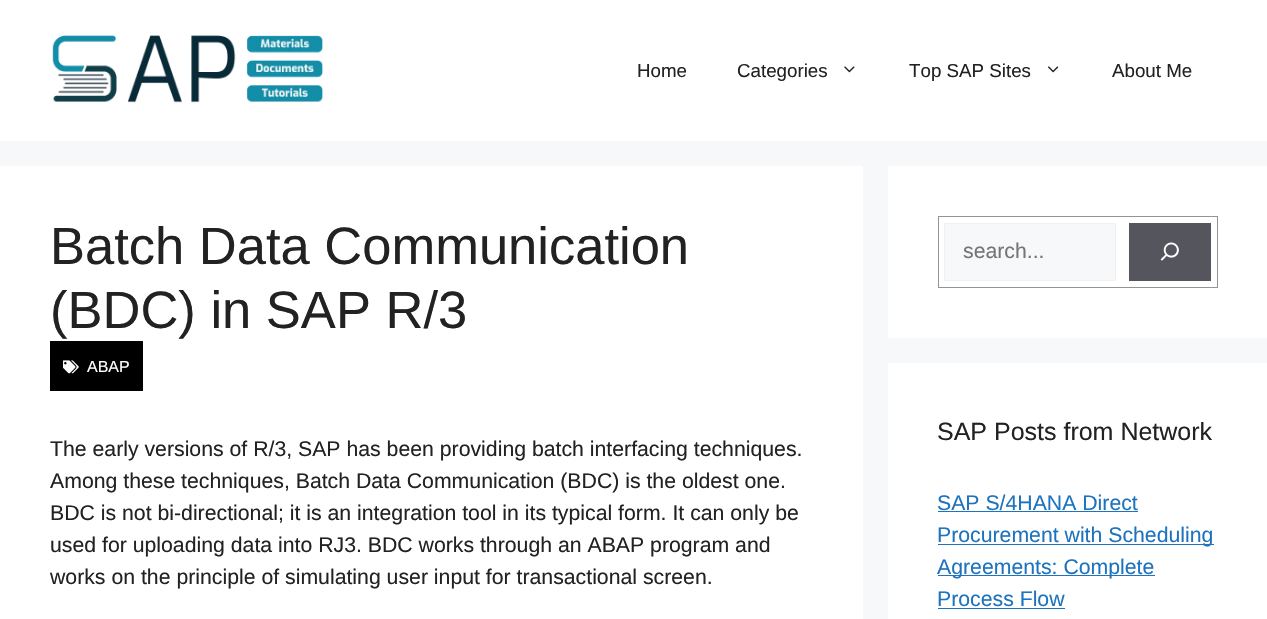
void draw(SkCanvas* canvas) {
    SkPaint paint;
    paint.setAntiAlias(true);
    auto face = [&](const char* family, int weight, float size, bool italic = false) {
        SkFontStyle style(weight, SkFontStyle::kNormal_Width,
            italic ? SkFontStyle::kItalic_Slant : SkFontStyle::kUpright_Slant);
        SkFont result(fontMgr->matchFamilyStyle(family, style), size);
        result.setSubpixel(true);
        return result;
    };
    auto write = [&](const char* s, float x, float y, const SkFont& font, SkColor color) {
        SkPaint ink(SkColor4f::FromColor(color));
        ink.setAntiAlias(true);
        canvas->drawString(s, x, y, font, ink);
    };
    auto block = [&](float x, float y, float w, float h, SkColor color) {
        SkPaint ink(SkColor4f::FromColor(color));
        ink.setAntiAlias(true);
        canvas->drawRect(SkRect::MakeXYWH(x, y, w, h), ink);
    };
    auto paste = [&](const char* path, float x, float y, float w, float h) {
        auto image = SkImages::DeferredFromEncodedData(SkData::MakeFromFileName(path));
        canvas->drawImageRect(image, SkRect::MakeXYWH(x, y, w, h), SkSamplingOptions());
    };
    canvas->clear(SkColorSetRGB(247, 248, 249));
    block(0, 0, 1267, 141, SK_ColorWHITE);
    paste("pic1.png", 52, 35, 272, 68);
    auto kFont1 = face("Liberation Sans", 400, 18.75f);
    write("Home", 637, 77, kFont1, SkColorSetRGB(34, 34, 34));
    write("Categories", 737, 77, kFont1, SkColorSetRGB(34, 34, 34));
    paste("pic2.png", 844, 66, 11, 7);
    write("Top SAP Sites", 909, 77, kFont1, SkColorSetRGB(34, 34, 34));
    paste("pic3.png", 1048, 66, 11, 7);
    write("About Me", 1112, 77, kFont1, SkColorSetRGB(34, 34, 34));
    block(0, 166, 863, 453, SK_ColorWHITE);
    auto kFont2 = face("Liberation Sans", 400, 52.5f);
    write("Batch Data Communication", 50, 264, kFont2, SkColorSetRGB(34, 34, 34));
    write("(BDC) in SAP R/3", 50, 328, kFont2, SkColorSetRGB(34, 34, 34));
    block(50, 341, 93, 50, SK_ColorBLACK);
    paste("pic4.png", 63, 360, 16, 14);
    auto kFont3 = face("Liberation Sans", 400, 16);
    write("ABAP", 87, 372, kFont3, SK_ColorWHITE);
    auto kFont4 = face("Liberation Sans", 400, 21.25f);
    write("The early versions of R/3, SAP has been providing batch interfacing techniques.", 50, 456, kFont4, SkColorSetRGB(34, 34, 34));
    write("Among these techniques, Batch Data Communication (BDC) is the oldest one.", 50, 488, kFont4, SkColorSetRGB(34, 34, 34));
    write("BDC is not bi-directional; it is an integration tool in its typical form. It can only be", 50, 520, kFont4, SkColorSetRGB(34, 34, 34));
    write("used for uploading data into RJ3. BDC works through an ABAP program and", 50, 552, kFont4, SkColorSetRGB(34, 34, 34));
    write("works on the principle of simulating user input for transactional screen.", 50, 584, kFont4, SkColorSetRGB(34, 34, 34));
    block(888, 166, 379, 172, SK_ColorWHITE);
    paint.setStyle(SkPaint::kStroke_Style);
    paint.setStrokeWidth(1);
    paint.setColor(SkColorSetRGB(148, 148, 148));
    canvas->drawRect(SkRect::MakeXYWH(938.5f, 216.5f, 279, 71), paint);
    paint.setStyle(SkPaint::kFill_Style);
    paint.setColor(SkColorSetRGB(247, 248, 249));
    canvas->drawRect(SkRect::MakeXYWH(944.5f, 223.5f, 171, 57), paint);
    paint.setStyle(SkPaint::kStroke_Style);
    paint.setColor(SkColorSetRGB(240, 240, 240));
    canvas->drawRect(SkRect::MakeXYWH(944.5f, 223.5f, 171, 57), paint);
    write("search...", 963, 258, kFont4, SkColorSetRGB(117, 117, 117));
    block(1129, 223, 82, 58, SkColorSetRGB(85, 85, 94));
    paste("pic5.png", 1160, 242, 19, 19);
    block(888, 363, 379, 256, SK_ColorWHITE);
    auto kFont5 = face("Liberation Sans", 400, 25);
    write("SAP Posts from Network", 937, 440, kFont5, SkColorSetRGB(34, 34, 34));
    write("SAP S/4HANA Direct", 937, 510, kFont4, SkColorSetRGB(30, 115, 190));
    block(938, 511, 200, 1, SkColorSetRGB(30, 115, 190));
    block(938, 544, 276, 1, SkColorSetRGB(30, 115, 190));
    write("Procurement with Scheduling", 937, 542, kFont4, SkColorSetRGB(30, 115, 190));
    block(938, 575, 217, 1, SkColorSetRGB(30, 115, 190));
    write("Agreements: Complete", 937, 574, kFont4, SkColorSetRGB(30, 115, 190));
    write("Process Flow", 937, 606, kFont4, SkColorSetRGB(30, 115, 190));
    block(938, 608, 127, 1, SkColorSetRGB(30, 115, 190));
}
